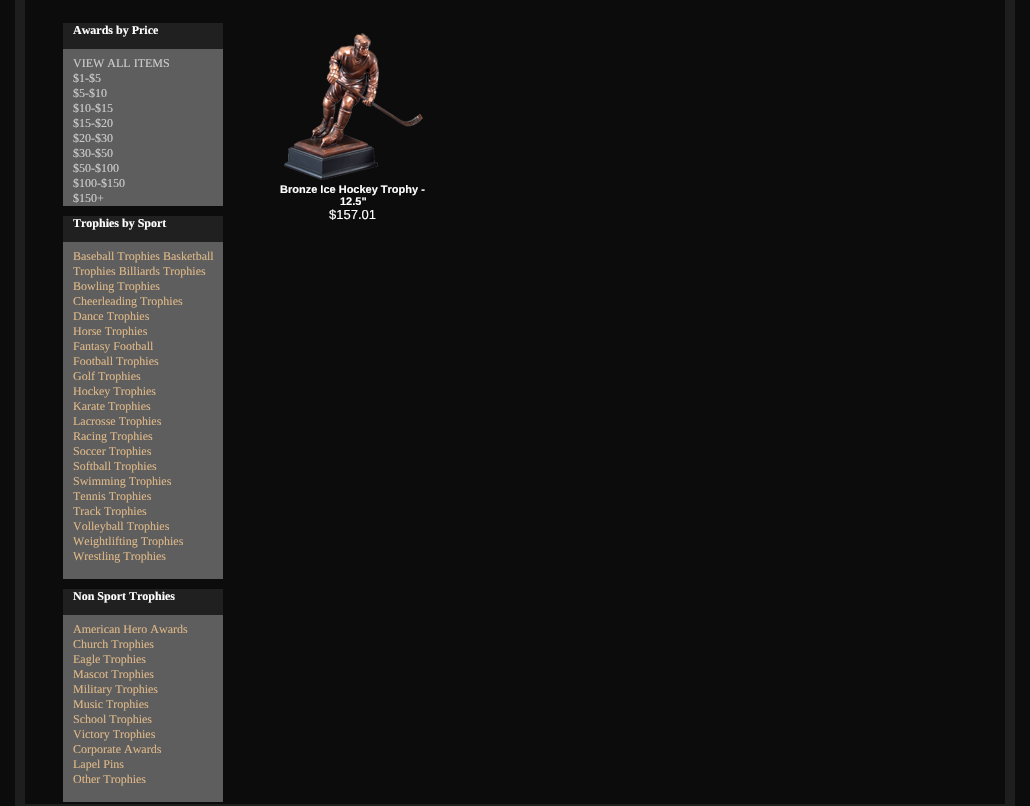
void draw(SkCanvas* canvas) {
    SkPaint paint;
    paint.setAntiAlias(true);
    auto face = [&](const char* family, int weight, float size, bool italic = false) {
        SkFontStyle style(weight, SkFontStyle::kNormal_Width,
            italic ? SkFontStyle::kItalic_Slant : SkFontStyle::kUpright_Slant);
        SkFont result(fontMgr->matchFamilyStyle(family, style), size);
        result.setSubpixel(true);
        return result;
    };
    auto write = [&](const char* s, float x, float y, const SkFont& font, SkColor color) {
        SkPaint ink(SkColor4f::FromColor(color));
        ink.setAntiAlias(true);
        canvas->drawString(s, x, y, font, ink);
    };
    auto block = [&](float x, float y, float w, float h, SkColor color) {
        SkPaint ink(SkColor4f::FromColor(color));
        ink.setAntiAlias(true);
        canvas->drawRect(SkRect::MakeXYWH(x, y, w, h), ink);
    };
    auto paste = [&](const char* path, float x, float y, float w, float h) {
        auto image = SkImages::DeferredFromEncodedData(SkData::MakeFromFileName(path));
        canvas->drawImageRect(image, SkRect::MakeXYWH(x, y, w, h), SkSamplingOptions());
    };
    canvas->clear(SkColorSetRGB(12, 12, 12));
    paint.setStyle(SkPaint::kStroke_Style);
    paint.setStrokeWidth(10);
    paint.setColor(SkColorSetRGB(30, 30, 30));
    canvas->drawRect(SkRect::MakeXYWH(20, -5, 990, 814), paint);
    block(63, 49, 160, 157, SkColorSetRGB(94, 94, 94));
    block(63, 23, 160, 26, SkColorSetRGB(32, 32, 32));
    auto kFont1 = face("Liberation Serif", 700, 12);
    write("Awards by Price", 73, 34, kFont1, SK_ColorWHITE);
    auto kFont2 = face("Liberation Serif", 400, 12);
    write("VIEW ALL ITEMS", 73, 67, kFont2, SkColorSetRGB(204, 204, 204));
    write("$1-$5", 73, 82, kFont2, SkColorSetRGB(204, 204, 204));
    write("$5-$10", 73, 97, kFont2, SkColorSetRGB(204, 204, 204));
    write("$10-$15", 73, 112, kFont2, SkColorSetRGB(204, 204, 204));
    write("$15-$20", 73, 127, kFont2, SkColorSetRGB(204, 204, 204));
    write("$20-$30", 73, 142, kFont2, SkColorSetRGB(204, 204, 204));
    write("$30-$50", 73, 157, kFont2, SkColorSetRGB(204, 204, 204));
    write("$50-$100", 73, 172, kFont2, SkColorSetRGB(204, 204, 204));
    write("$100-$150", 73, 187, kFont2, SkColorSetRGB(204, 204, 204));
    write("$150+", 73, 202, kFont2, SkColorSetRGB(204, 204, 204));
    block(63, 242, 160, 337, SkColorSetRGB(94, 94, 94));
    block(63, 216, 160, 26, SkColorSetRGB(32, 32, 32));
    write("Trophies by Sport", 73, 227, kFont1, SK_ColorWHITE);
    write("Baseball Trophies Basketball", 73, 260, kFont2, SkColorSetRGB(222, 184, 135));
    write("Trophies Billiards Trophies", 73, 275, kFont2, SkColorSetRGB(222, 184, 135));
    write("Bowling Trophies", 73, 290, kFont2, SkColorSetRGB(222, 184, 135));
    write("Cheerleading Trophies", 73, 305, kFont2, SkColorSetRGB(222, 184, 135));
    write("Dance Trophies", 73, 320, kFont2, SkColorSetRGB(222, 184, 135));
    write("Horse Trophies", 73, 335, kFont2, SkColorSetRGB(222, 184, 135));
    write("Fantasy Football", 73, 350, kFont2, SkColorSetRGB(222, 184, 135));
    write("Football Trophies", 73, 365, kFont2, SkColorSetRGB(222, 184, 135));
    write("Golf Trophies", 73, 380, kFont2, SkColorSetRGB(222, 184, 135));
    write("Hockey Trophies", 73, 395, kFont2, SkColorSetRGB(222, 184, 135));
    write("Karate Trophies", 73, 410, kFont2, SkColorSetRGB(222, 184, 135));
    write("Lacrosse Trophies", 73, 425, kFont2, SkColorSetRGB(222, 184, 135));
    write("Racing Trophies", 73, 440, kFont2, SkColorSetRGB(222, 184, 135));
    write("Soccer Trophies", 73, 455, kFont2, SkColorSetRGB(222, 184, 135));
    write("Softball Trophies", 73, 470, kFont2, SkColorSetRGB(222, 184, 135));
    write("Swimming Trophies", 73, 485, kFont2, SkColorSetRGB(222, 184, 135));
    write("Tennis Trophies", 73, 500, kFont2, SkColorSetRGB(222, 184, 135));
    write("Track Trophies", 73, 515, kFont2, SkColorSetRGB(222, 184, 135));
    write("Volleyball Trophies", 73, 530, kFont2, SkColorSetRGB(222, 184, 135));
    write("Weightlifting Trophies", 73, 545, kFont2, SkColorSetRGB(222, 184, 135));
    write("Wrestling Trophies", 73, 560, kFont2, SkColorSetRGB(222, 184, 135));
    block(63, 615, 160, 187, SkColorSetRGB(94, 94, 94));
    block(63, 589, 160, 26, SkColorSetRGB(32, 32, 32));
    write("Non Sport Trophies", 73, 600, kFont1, SK_ColorWHITE);
    write("American Hero Awards", 73, 633, kFont2, SkColorSetRGB(222, 184, 135));
    write("Church Trophies", 73, 648, kFont2, SkColorSetRGB(222, 184, 135));
    write("Eagle Trophies", 73, 663, kFont2, SkColorSetRGB(222, 184, 135));
    write("Mascot Trophies", 73, 678, kFont2, SkColorSetRGB(222, 184, 135));
    write("Military Trophies", 73, 693, kFont2, SkColorSetRGB(222, 184, 135));
    write("Music Trophies", 73, 708, kFont2, SkColorSetRGB(222, 184, 135));
    write("School Trophies", 73, 723, kFont2, SkColorSetRGB(222, 184, 135));
    write("Victory Trophies", 73, 738, kFont2, SkColorSetRGB(222, 184, 135));
    write("Corporate Awards", 73, 753, kFont2, SkColorSetRGB(222, 184, 135));
    write("Lapel Pins", 73, 768, kFont2, SkColorSetRGB(222, 184, 135));
    write("Other Trophies", 73, 783, kFont2, SkColorSetRGB(222, 184, 135));
    paste("pic1.png", 284, 33, 139, 147);
    auto kFont3 = face("Liberation Sans", 700, 11);
    write("Bronze Ice Hockey Trophy -", 280, 193, kFont3, SK_ColorWHITE);
    write("12.5\"", 340, 205, kFont3, SK_ColorWHITE);
    auto kFont4 = face("Liberation Sans", 400, 13);
    write("$157.01", 329, 219, kFont4, SK_ColorWHITE);
}
